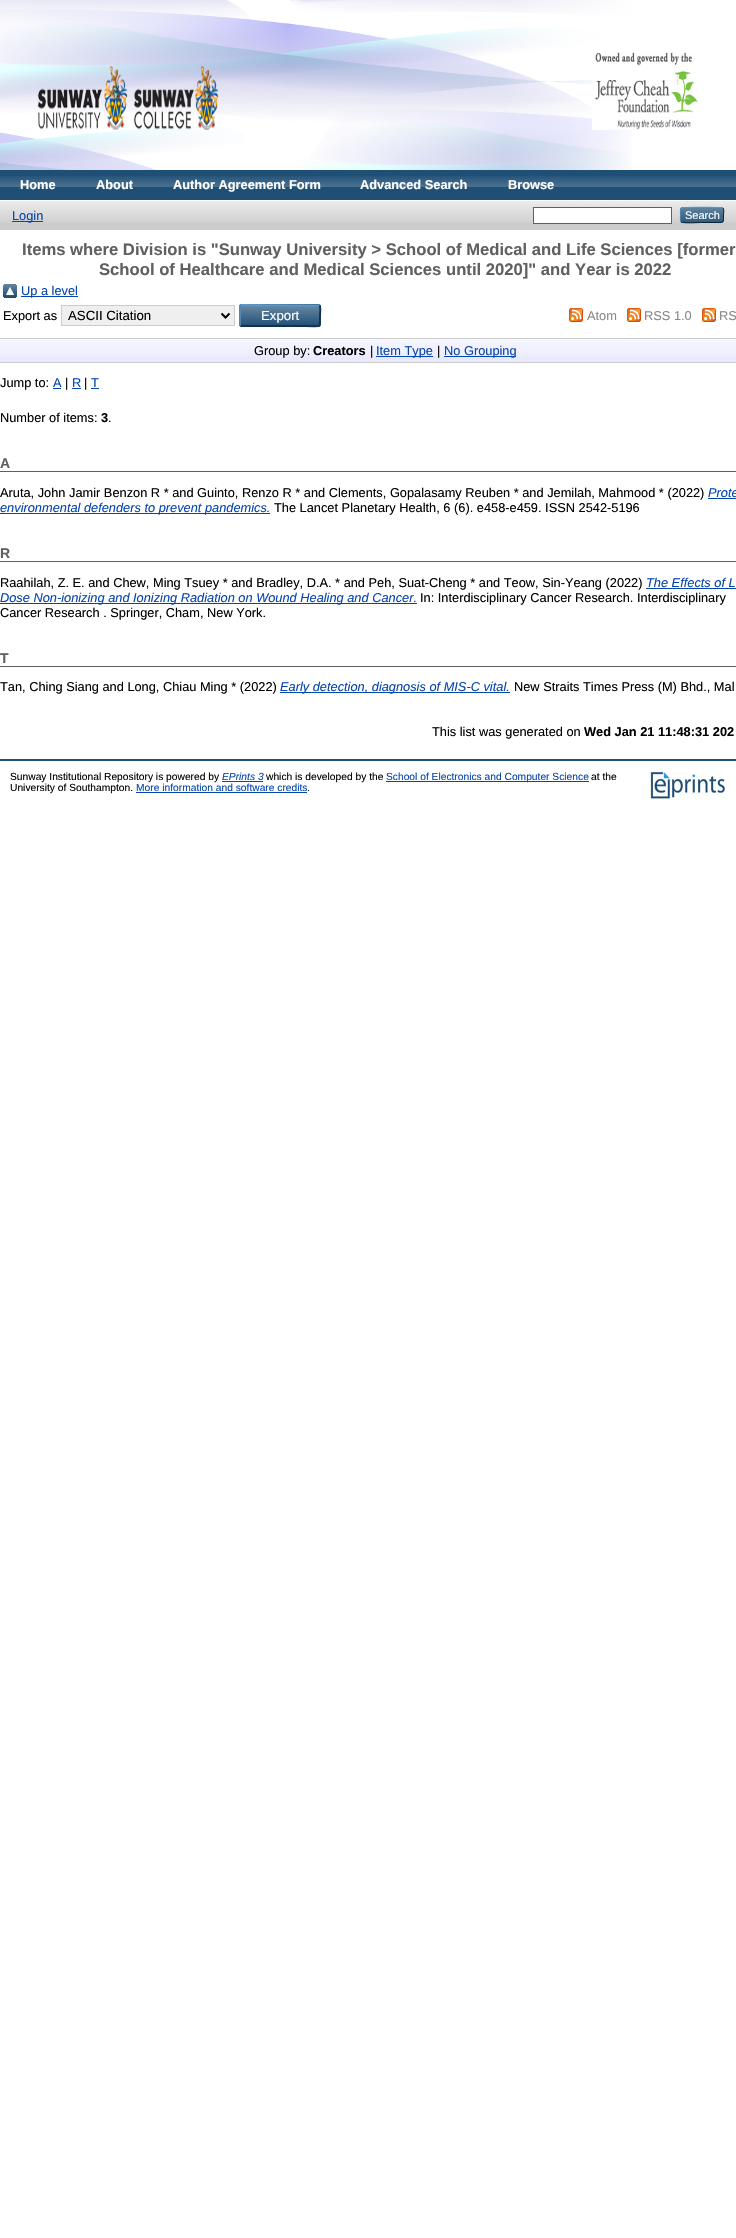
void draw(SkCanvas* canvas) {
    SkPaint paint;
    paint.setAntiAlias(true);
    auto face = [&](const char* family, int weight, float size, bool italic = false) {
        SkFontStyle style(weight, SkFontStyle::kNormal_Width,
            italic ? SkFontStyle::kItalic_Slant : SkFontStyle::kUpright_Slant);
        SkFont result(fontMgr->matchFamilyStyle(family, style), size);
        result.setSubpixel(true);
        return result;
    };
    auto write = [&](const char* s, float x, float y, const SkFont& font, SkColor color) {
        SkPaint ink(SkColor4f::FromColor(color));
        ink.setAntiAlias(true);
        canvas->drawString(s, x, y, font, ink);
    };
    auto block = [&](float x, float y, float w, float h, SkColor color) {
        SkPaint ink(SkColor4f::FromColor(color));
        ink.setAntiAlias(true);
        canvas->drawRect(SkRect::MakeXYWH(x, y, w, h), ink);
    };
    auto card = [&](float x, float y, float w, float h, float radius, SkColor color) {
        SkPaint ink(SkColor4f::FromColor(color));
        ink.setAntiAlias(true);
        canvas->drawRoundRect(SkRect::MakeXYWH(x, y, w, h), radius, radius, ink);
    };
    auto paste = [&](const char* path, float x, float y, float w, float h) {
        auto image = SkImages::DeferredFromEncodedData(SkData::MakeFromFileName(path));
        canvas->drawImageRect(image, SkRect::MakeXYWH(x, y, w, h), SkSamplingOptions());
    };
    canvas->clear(SK_ColorWHITE);
    paste("pic1.png", 0, 0, 632, 170);
    paste("pic2.png", 37, 52, 661, 78);
    block(0, 170, 736, 30, SkColorSetRGB(32, 79, 118));
    paste("pic3.png", 0, 176, 736, 11);
    auto kFont1 = face("Liberation Sans", 700, 12.8f);
    write("Home", 20, 189, kFont1, SK_ColorWHITE);
    write("About", 96, 189, kFont1, SK_ColorWHITE);
    write("Author Agreement Form", 173, 189, kFont1, SK_ColorWHITE);
    write("Advanced Search", 360, 189, kFont1, SK_ColorWHITE);
    write("Browse", 508, 189, kFont1, SK_ColorWHITE);
    block(0, 201, 736, 29, SkColorSetRGB(204, 204, 204));
    paste("pic4.png", 0, 201, 736, 22);
    block(12, 221, 31, 1, SkColorSetRGB(6, 69, 173));
    auto kFont2 = face("Liberation Sans", 400, 12.8f);
    write("Login", 12, 220, kFont2, SkColorSetRGB(6, 69, 173));
    paint.setColor(SK_ColorWHITE);
    canvas->drawRect(SkRect::MakeXYWH(533.5f, 207.5f, 138, 16), paint);
    paint.setStyle(SkPaint::kStroke_Style);
    paint.setStrokeWidth(1);
    paint.setColor(SkColorSetRGB(96, 96, 96));
    canvas->drawRect(SkRect::MakeXYWH(533.5f, 207.5f, 138, 16), paint);
    card(680, 207, 44, 16, 3, SkColorSetRGB(31, 79, 118));
    paste("pic5.png", 680, 207, 44, 16);
    paint.setColor(SkColorSetRGB(91, 151, 199));
    canvas->drawPath(SkPathBuilder().moveTo(681, 208).cubicTo(682.5f, 207, 721.5f, 207, 723, 208).detach(), paint);
    paint.setColor(SkColorSetRGB(13, 33, 49));
    canvas->drawPath(SkPathBuilder().moveTo(723, 208).cubicTo(724.5f, 210, 723.5f, 213, 723.5f, 215).cubicTo(723.5f, 223.5f, 724, 222.5f, 714.5f, 222.5f).lineTo(702, 222.5f).cubicTo(699, 222.5f, 683, 223.5f, 681, 222).detach(), paint);
    paint.setColor(SkColorSetRGB(82, 135, 179));
    canvas->drawPath(SkPathBuilder().moveTo(681, 222).cubicTo(680, 220.5f, 680.5f, 216.5f, 680.5f, 215).cubicTo(680.5f, 213.5f, 680, 209.5f, 681, 208).detach(), paint);
    auto kFont3 = face("Liberation Sans", 400, 11);
    write("Search", 685, 219, kFont3, SK_ColorWHITE);
    auto kFont4 = face("Liberation Sans", 700, 16.65f);
    write("Items where Division is \"Sunway University > School of Medical and Life Sciences [former", 22, 255, kFont4, SkColorSetRGB(96, 96, 96));
    write("School of Healthcare and Medical Sciences until 2020]\" and Year is 2022", 99, 275, kFont4, SkColorSetRGB(96, 96, 96));
    paste("pic6.png", 3, 284, 14, 14);
    block(21, 296, 57, 1, SkColorSetRGB(6, 69, 173));
    write("Up a level", 21, 295, kFont2, SkColorSetRGB(6, 69, 173));
    write("Export as", 3, 320, kFont2, SK_ColorBLACK);
    paint.setStyle(SkPaint::kFill_Style);
    paint.setColor(SkColorSetRGB(239, 239, 239));
    canvas->drawRect(SkRect::MakeXYWH(61.5f, 305.5f, 173, 20), paint);
    paint.setStyle(SkPaint::kStroke_Style);
    paint.setColor(SkColorSetRGB(204, 204, 204));
    canvas->drawRect(SkRect::MakeXYWH(61.5f, 305.5f, 173, 20), paint);
    paint.setStrokeWidth(2);
    paint.setColor(SK_ColorBLACK);
    canvas->drawPath(SkPathBuilder().moveTo(221.5f, 313.5f).lineTo(225.5f, 317.5f).lineTo(229.5f, 313.5f).detach(), paint);
    auto kFont5 = face("Liberation Sans", 400, 13.25f);
    write("ASCII Citation", 68, 320, kFont5, SK_ColorBLACK);
    card(239, 304, 82, 23, 3, SkColorSetRGB(31, 79, 118));
    paste("pic7.png", 239, 306, 82, 19);
    paint.setColor(SkColorSetRGB(91, 151, 199));
    canvas->drawPath(SkPathBuilder().moveTo(240.5f, 305.5f).lineTo(242, 305).lineTo(319.5f, 305.5f).detach(), paint);
    paint.setColor(SkColorSetRGB(19, 50, 74));
    canvas->drawPath(SkPathBuilder().moveTo(319.5f, 305.5f).cubicTo(321, 307, 320, 313.5f, 320, 315.5f).cubicTo(320, 329.5f, 321.5f, 326, 305.5f, 326).lineTo(242, 326).lineTo(240.5f, 325.5f).detach(), paint);
    paint.setColor(SkColorSetRGB(82, 135, 179));
    canvas->drawPath(SkPathBuilder().moveTo(240.5f, 325.5f).cubicTo(240, 325, 240, 324.5f, 240, 324).lineTo(240, 307).cubicTo(240, 306.5f, 240, 306, 240.5f, 305.5f).detach(), paint);
    write("Export", 261, 320, kFont5, SK_ColorWHITE);
    paste("pic8.png", 569, 308, 14, 14);
    write("Atom", 587, 320, kFont2, SkColorSetRGB(136, 136, 136));
    paste("pic8.png", 627, 308, 14, 14);
    write("RSS 1.0", 644, 320, kFont2, SkColorSetRGB(136, 136, 136));
    paste("pic8.png", 702, 308, 14, 14);
    write("RS", 719, 320, kFont2, SkColorSetRGB(136, 136, 136));
    block(0, 339, 736, 23, SkColorSetRGB(232, 232, 255));
    paste("pic9.png", 0, 339, 736, 18);
    block(0, 338, 736, 1, SkColorSetRGB(204, 204, 204));
    block(0, 362, 736, 1, SkColorSetRGB(204, 204, 204));
    write("Group by:", 254, 355, kFont2, SK_ColorBLACK);
    write("Creators", 313, 355, kFont1, SK_ColorBLACK);
    write("|", 370, 355, kFont2, SK_ColorBLACK);
    block(376, 356, 57, 1, SkColorSetRGB(6, 69, 173));
    write("Item Type", 376, 355, kFont2, SkColorSetRGB(6, 69, 173));
    write("|", 437, 355, kFont2, SK_ColorBLACK);
    block(444, 356, 72, 1, SkColorSetRGB(6, 69, 173));
    write("No Grouping", 444, 355, kFont2, SkColorSetRGB(6, 69, 173));
    write("Jump to:", 0, 387, kFont2, SK_ColorBLACK);
    write("A", 53, 387, kFont2, SkColorSetRGB(6, 69, 173));
    block(53, 388, 8, 1, SkColorSetRGB(6, 69, 173));
    write("|", 65, 387, kFont2, SK_ColorBLACK);
    write("R", 72, 387, kFont2, SkColorSetRGB(6, 69, 173));
    block(72, 388, 9, 1, SkColorSetRGB(6, 69, 173));
    write("|", 84, 387, kFont2, SK_ColorBLACK);
    write("T", 91, 387, kFont2, SkColorSetRGB(6, 69, 173));
    block(91, 388, 8, 1, SkColorSetRGB(6, 69, 173));
    write("Number of items:", 0, 422, kFont2, SK_ColorBLACK);
    write("3", 101, 422, kFont1, SK_ColorBLACK);
    write(".", 108, 422, kFont2, SK_ColorBLACK);
    block(0, 471, 736, 1, SkColorSetRGB(96, 96, 96));
    auto kFont6 = face("Liberation Sans", 700, 14);
    write("A", 0, 468, kFont6, SkColorSetRGB(96, 96, 96));
    write("Aruta, John Jamir Benzon R * and Guinto, Renzo R * and Clements, Gopalasamy Reuben * and Jemilah, Mahmood * (2022)", 0, 497, kFont2, SK_ColorBLACK);
    auto kFont7 = face("Liberation Sans", 400, 12.8f, true);
    write("Prote", 708, 497, kFont7, SkColorSetRGB(6, 69, 173));
    block(708, 498, 28, 1, SkColorSetRGB(6, 69, 173));
    block(0, 513, 270, 1, SkColorSetRGB(6, 69, 173));
    write("environmental defenders to prevent pandemics.", 0, 512, kFont7, SkColorSetRGB(6, 69, 173));
    write("The Lancet Planetary Health, 6 (6). e458-e459. ISSN 2542-5196", 274, 512, kFont2, SK_ColorBLACK);
    block(0, 561, 736, 1, SkColorSetRGB(96, 96, 96));
    write("R", 0, 558, kFont6, SkColorSetRGB(96, 96, 96));
    write("Raahilah, Z. E. and Chew, Ming Tsuey * and Bradley, D.A. * and Peh, Suat-Cheng * and Teow, Sin-Yeang (2022)", 0, 587, kFont2, SK_ColorBLACK);
    write("The Effects of L", 646, 587, kFont7, SkColorSetRGB(6, 69, 173));
    block(646, 588, 90, 1, SkColorSetRGB(6, 69, 173));
    block(0, 603, 417, 1, SkColorSetRGB(6, 69, 173));
    write("Dose Non-ionizing and Ionizing Radiation on Wound Healing and Cancer.", 0, 602, kFont7, SkColorSetRGB(6, 69, 173));
    write("In: Interdisciplinary Cancer Research. Interdisciplinary", 420, 602, kFont2, SK_ColorBLACK);
    write("Cancer Research . Springer, Cham, New York.", 0, 617, kFont2, SK_ColorBLACK);
    block(0, 666, 736, 1, SkColorSetRGB(96, 96, 96));
    write("T", 0, 663, kFont6, SkColorSetRGB(96, 96, 96));
    write("Tan, Ching Siang and Long, Chiau Ming * (2022)", 0, 691, kFont2, SK_ColorBLACK);
    block(280, 692, 230, 1, SkColorSetRGB(6, 69, 173));
    write("Early detection, diagnosis of MIS-C vital.", 280, 691, kFont7, SkColorSetRGB(6, 69, 173));
    write("New Straits Times Press (M) Bhd., Mal", 514, 691, kFont2, SK_ColorBLACK);
    write("This list was generated on", 432, 736, kFont2, SK_ColorBLACK);
    write("Wed Jan 21 11:48:31 202", 584, 736, kFont1, SK_ColorBLACK);
    block(0, 759, 736, 2, SkColorSetRGB(32, 79, 118));
    auto kFont8 = face("Liberation Sans", 400, 10.25f);
    write("Sunway Institutional Repository is powered by", 10, 780, kFont8, SK_ColorBLACK);
    auto kFont9 = face("Liberation Sans", 400, 10.25f, true);
    write("EPrints 3", 222, 780, kFont9, SkColorSetRGB(6, 69, 173));
    block(222, 781, 41, 1, SkColorSetRGB(6, 69, 173));
    write("which is developed by the", 266, 780, kFont8, SK_ColorBLACK);
    block(386, 781, 203, 1, SkColorSetRGB(6, 69, 173));
    write("School of Electronics and Computer Science", 386, 780, kFont8, SkColorSetRGB(6, 69, 173));
    write("at the", 591, 780, kFont8, SK_ColorBLACK);
    write("University of Southampton.", 10, 791, kFont8, SK_ColorBLACK);
    write("More information and software credits", 136, 791, kFont8, SkColorSetRGB(6, 69, 173));
    block(136, 792, 171, 1, SkColorSetRGB(6, 69, 173));
    write(".", 307, 791, kFont8, SK_ColorBLACK);
    paste("pic10.png", 649, 772, 76, 28);
}
